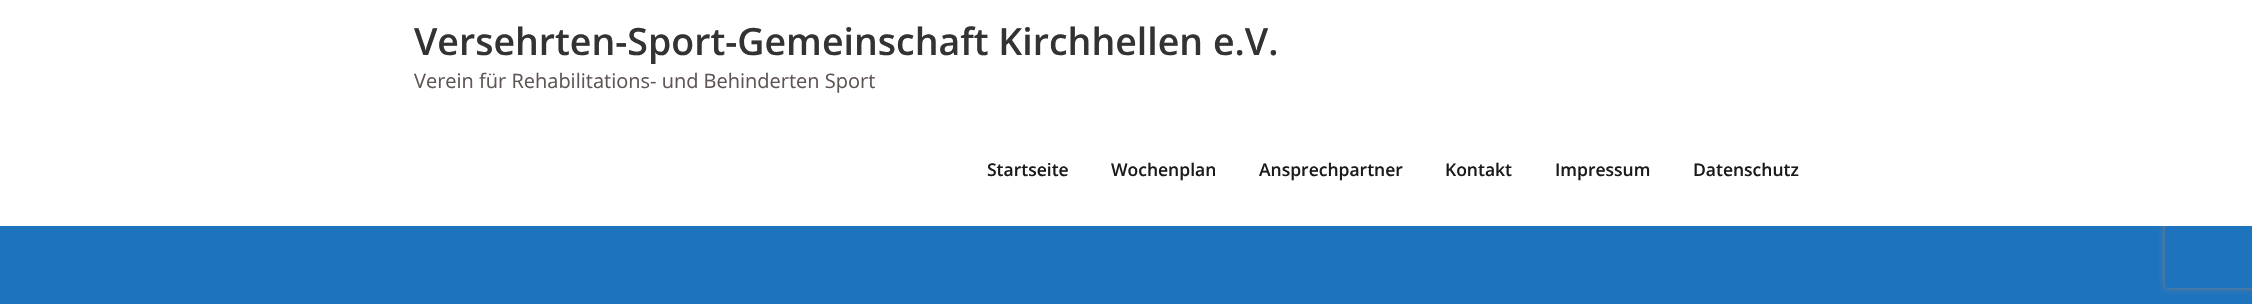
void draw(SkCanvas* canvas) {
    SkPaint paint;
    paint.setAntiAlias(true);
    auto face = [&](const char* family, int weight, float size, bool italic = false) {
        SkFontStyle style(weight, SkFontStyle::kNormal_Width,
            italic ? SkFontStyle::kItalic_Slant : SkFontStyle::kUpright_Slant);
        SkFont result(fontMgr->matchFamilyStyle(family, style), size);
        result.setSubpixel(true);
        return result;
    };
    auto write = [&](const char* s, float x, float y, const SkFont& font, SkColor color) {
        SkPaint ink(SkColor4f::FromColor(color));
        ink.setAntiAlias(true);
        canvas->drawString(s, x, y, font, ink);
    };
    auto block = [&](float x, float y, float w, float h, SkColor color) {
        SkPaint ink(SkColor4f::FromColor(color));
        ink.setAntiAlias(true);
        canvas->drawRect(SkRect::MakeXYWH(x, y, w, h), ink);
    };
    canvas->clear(SkColorSetRGB(30, 115, 190));
    canvas->save();
    canvas->clipPath(SkPathBuilder(SkPathFillType::kEvenOdd).moveTo(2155, 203).lineTo(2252, 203).lineTo(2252, 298).lineTo(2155, 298).close().moveTo(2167.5f, 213).lineTo(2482.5f, 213).cubicTo(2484, 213, 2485, 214, 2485, 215.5f).lineTo(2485, 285.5f).cubicTo(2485, 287, 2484, 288, 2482.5f, 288).lineTo(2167.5f, 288).cubicTo(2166, 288, 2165, 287, 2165, 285.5f).lineTo(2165, 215.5f).cubicTo(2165, 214, 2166, 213, 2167.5f, 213).close().detach(), true);
    paint.setColor(SkColorSetRGB(128, 128, 128));
    paint.setMaskFilter(SkMaskFilter::MakeBlur(kNormal_SkBlurStyle, 3));
    canvas->drawRoundRect(SkRect::MakeXYWH(2165, 213, 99, 75), 2.5f, 2.5f, paint);
    paint.setMaskFilter(nullptr);
    canvas->restore();
    block(0, 0, 2252, 226, SK_ColorWHITE);
    auto kFont1 = face("Open Sans", 600, 37.5f);
    write("Versehrten-Sport-Gemeinschaft Kirchhellen e.V.", 414, 55, kFont1, SkColorSetRGB(51, 51, 51));
    auto kFont2 = face("Open Sans", 400, 20);
    write("Verein für Rehabilitations- und Behinderten Sport", 414, 88, kFont2, SkColorSetRGB(95, 85, 85));
    auto kFont3 = face("Open Sans", 600, 17.5f);
    write("Startseite", 987, 176, kFont3, SkColorSetRGB(27, 27, 27));
    write("Wochenplan", 1111, 176, kFont3, SkColorSetRGB(27, 27, 27));
    write("Ansprechpartner", 1259, 176, kFont3, SkColorSetRGB(27, 27, 27));
    write("Kontakt", 1445, 176, kFont3, SkColorSetRGB(27, 27, 27));
    write("Impressum", 1555, 176, kFont3, SkColorSetRGB(27, 27, 27));
    write("Datenschutz", 1693, 176, kFont3, SkColorSetRGB(27, 27, 27));
}
